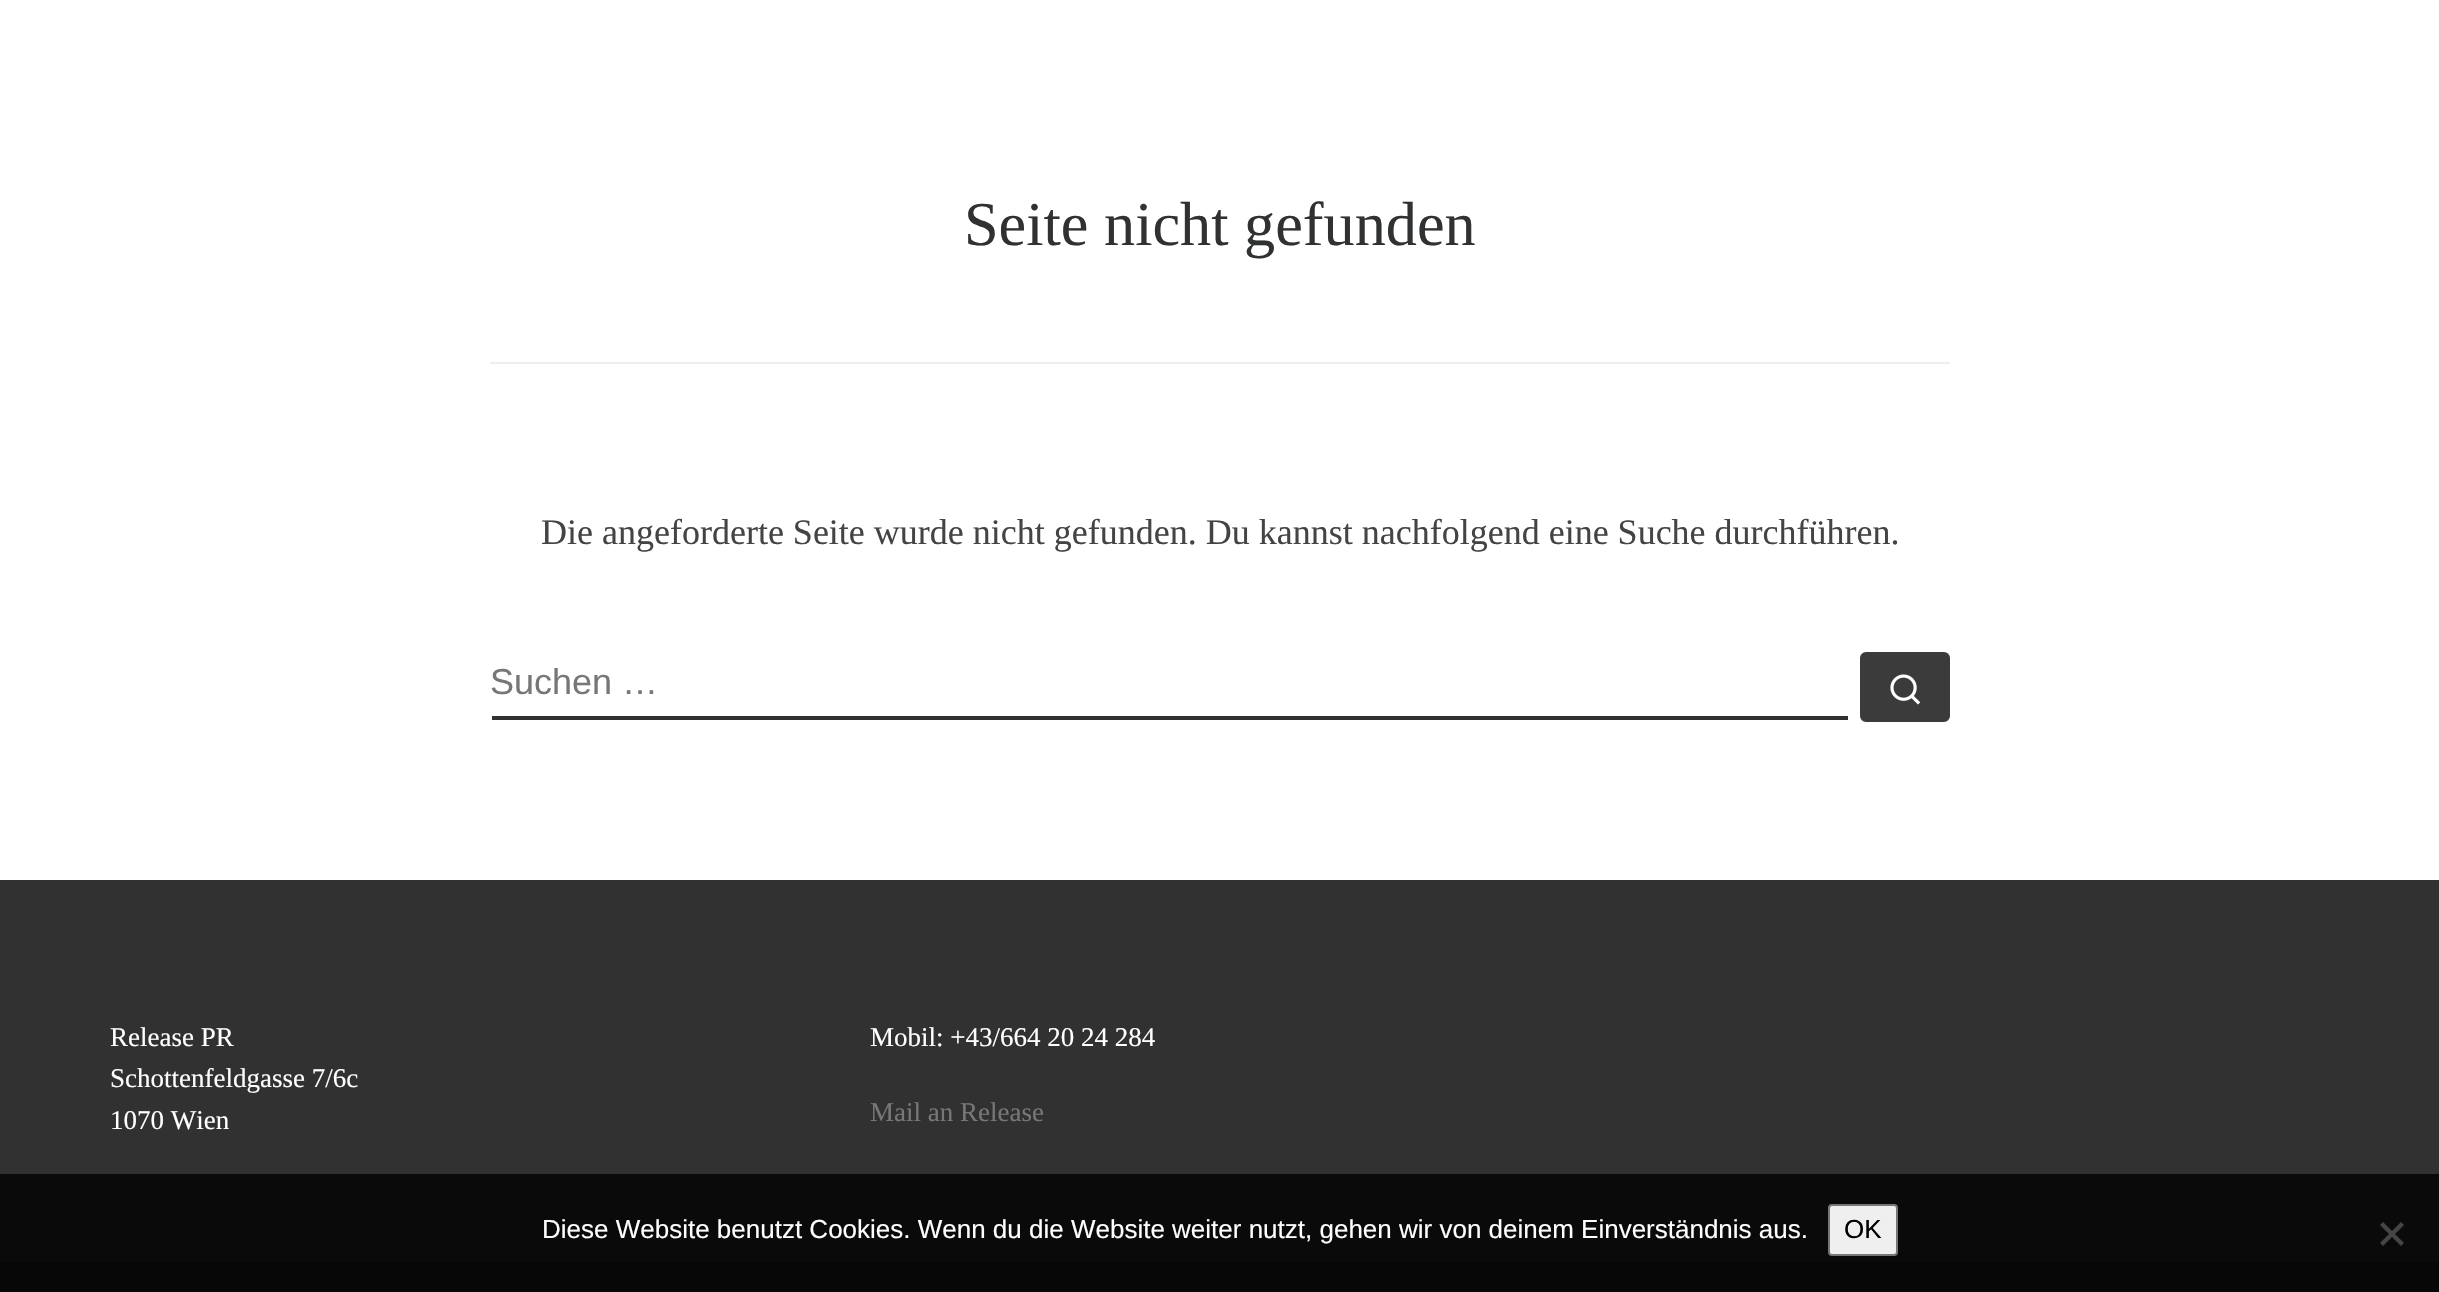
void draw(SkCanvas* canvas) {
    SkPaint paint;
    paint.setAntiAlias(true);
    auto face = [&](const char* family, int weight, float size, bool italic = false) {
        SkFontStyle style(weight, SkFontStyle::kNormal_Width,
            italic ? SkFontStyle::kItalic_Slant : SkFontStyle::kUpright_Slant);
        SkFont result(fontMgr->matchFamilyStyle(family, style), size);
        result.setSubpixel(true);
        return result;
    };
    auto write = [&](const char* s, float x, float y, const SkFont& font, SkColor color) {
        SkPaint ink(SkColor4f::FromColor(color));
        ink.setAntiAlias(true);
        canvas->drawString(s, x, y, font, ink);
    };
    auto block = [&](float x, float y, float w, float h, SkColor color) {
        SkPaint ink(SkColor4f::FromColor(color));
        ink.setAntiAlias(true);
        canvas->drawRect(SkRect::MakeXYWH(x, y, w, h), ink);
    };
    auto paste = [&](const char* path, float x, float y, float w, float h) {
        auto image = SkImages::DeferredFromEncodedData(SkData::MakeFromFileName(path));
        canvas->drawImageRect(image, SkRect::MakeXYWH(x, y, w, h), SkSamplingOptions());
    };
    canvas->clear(SK_ColorWHITE);
    auto kFont1 = face("Liberation Serif", 400, 62.25f);
    write("Seite nicht gefunden", 964, 245, kFont1, SkColorSetRGB(48, 49, 51));
    block(490, 362, 1460, 2, SkColorSetRGB(236, 238, 239));
    auto kFont2 = face("Liberation Serif", 400, 36);
    write("Die angeforderte Seite wurde nicht gefunden. Du kannst nachfolgend eine Suche durchführen.", 541, 544, kFont2, SkColorSetRGB(68, 68, 68));
    block(492, 716, 1356, 4, SkColorSetRGB(49, 49, 49));
    auto kFont3 = face("Liberation Sans", 400, 36);
    write("Suchen …", 490, 694, kFont3, SkColorSetRGB(119, 119, 119));
    paint.setColor(SkColorSetRGB(59, 59, 59));
    canvas->drawRoundRect(SkRect::MakeXYWH(1862, 654, 86, 66), 4, 4, paint);
    paint.setStyle(SkPaint::kStroke_Style);
    paint.setStrokeWidth(4);
    canvas->drawRoundRect(SkRect::MakeXYWH(1862, 654, 86, 66), 4, 4, paint);
    paste("pic1.png", 1890, 674, 31, 31);
    block(0, 880, 2439, 294, SkColorSetRGB(49, 49, 49));
    block(0, 1174, 2439, 88, SkColorSetRGB(10, 10, 10));
    auto kFont4 = face("Liberation Serif", 400, 27);
    write("Release PR", 110, 1046, kFont4, SK_ColorWHITE);
    write("Schottenfeldgasse 7/6c", 110, 1087, kFont4, SK_ColorWHITE);
    write("1070 Wien", 110, 1129, kFont4, SK_ColorWHITE);
    write("Mobil: +43/664 20 24 284", 870, 1046, kFont4, SK_ColorWHITE);
    write("Mail an Release", 870, 1121, kFont4, SkColorSetRGB(119, 119, 119));
    block(0, 1262, 2439, 30, SkColorSetRGB(7, 7, 7));
    auto kFont5 = face("Liberation Sans", 400, 26);
    write("Diese Website benutzt Cookies. Wenn du die Website weiter nutzt, gehen wir von deinem Einverständnis aus.", 542, 1238, kFont5, SK_ColorWHITE);
    paint.setStyle(SkPaint::kFill_Style);
    paint.setColor(SkColorSetRGB(239, 239, 239));
    canvas->drawRoundRect(SkRect::MakeXYWH(1829, 1205, 68, 50), 3, 3, paint);
    paint.setStyle(SkPaint::kStroke_Style);
    paint.setStrokeWidth(2);
    paint.setColor(SkColorSetRGB(118, 118, 118));
    canvas->drawRoundRect(SkRect::MakeXYWH(1829, 1205, 68, 50), 3, 3, paint);
    write("OK", 1844, 1238, kFont5, SK_ColorBLACK);
    paint.setStyle(SkPaint::kFill_Style);
    paint.setColor(SkColorSetRGB(69, 69, 69));
    canvas->drawPath(SkPathBuilder().moveTo(2401, 1222).lineTo(2404, 1225).lineTo(2383, 1246).lineTo(2380, 1243).close().detach(), paint);
    canvas->drawPath(SkPathBuilder().moveTo(2380, 1225).lineTo(2383, 1222).lineTo(2404, 1243).lineTo(2401, 1246).close().detach(), paint);
}
